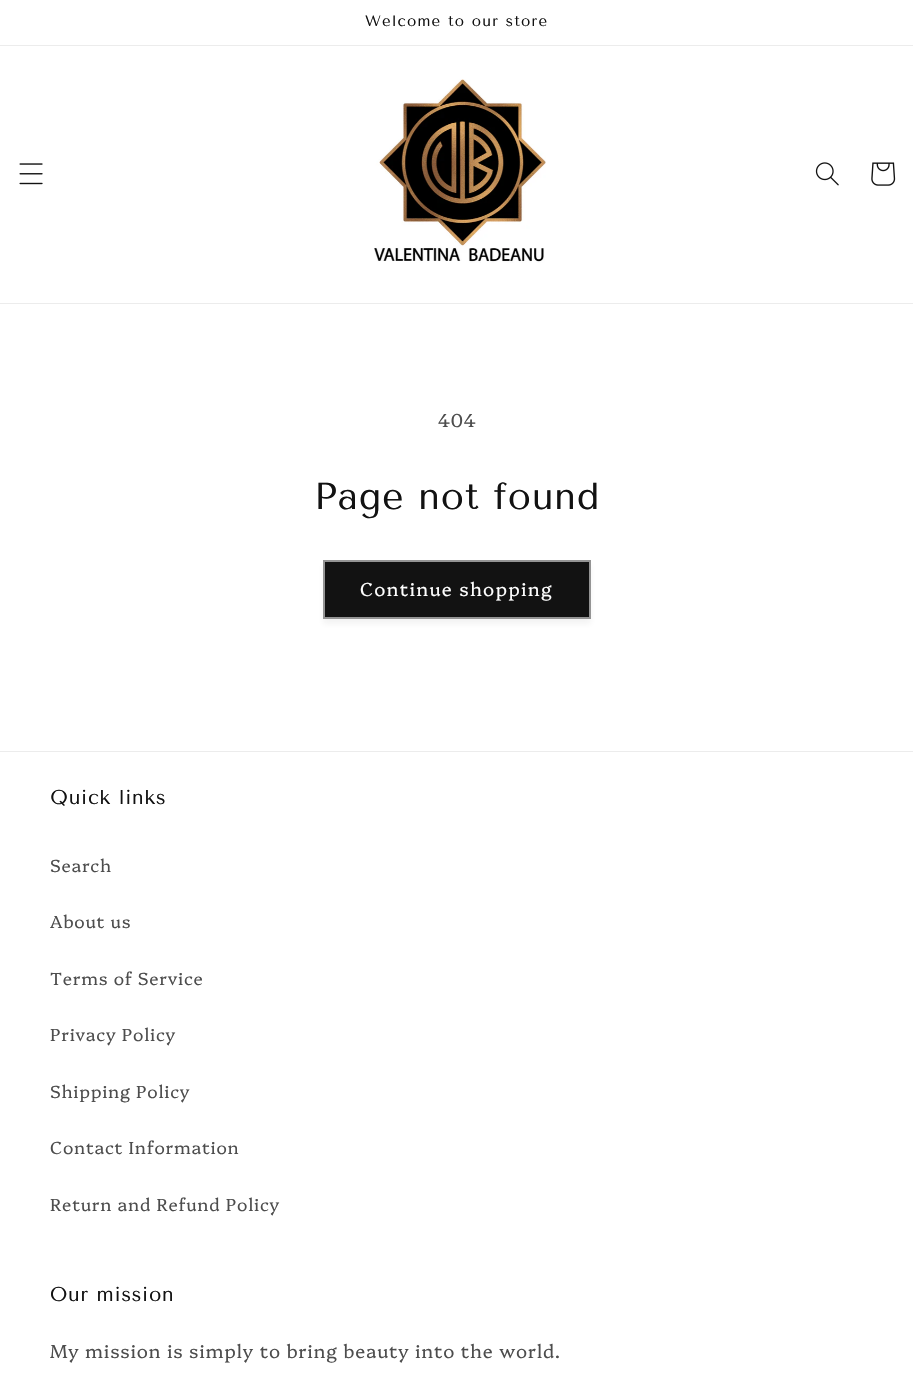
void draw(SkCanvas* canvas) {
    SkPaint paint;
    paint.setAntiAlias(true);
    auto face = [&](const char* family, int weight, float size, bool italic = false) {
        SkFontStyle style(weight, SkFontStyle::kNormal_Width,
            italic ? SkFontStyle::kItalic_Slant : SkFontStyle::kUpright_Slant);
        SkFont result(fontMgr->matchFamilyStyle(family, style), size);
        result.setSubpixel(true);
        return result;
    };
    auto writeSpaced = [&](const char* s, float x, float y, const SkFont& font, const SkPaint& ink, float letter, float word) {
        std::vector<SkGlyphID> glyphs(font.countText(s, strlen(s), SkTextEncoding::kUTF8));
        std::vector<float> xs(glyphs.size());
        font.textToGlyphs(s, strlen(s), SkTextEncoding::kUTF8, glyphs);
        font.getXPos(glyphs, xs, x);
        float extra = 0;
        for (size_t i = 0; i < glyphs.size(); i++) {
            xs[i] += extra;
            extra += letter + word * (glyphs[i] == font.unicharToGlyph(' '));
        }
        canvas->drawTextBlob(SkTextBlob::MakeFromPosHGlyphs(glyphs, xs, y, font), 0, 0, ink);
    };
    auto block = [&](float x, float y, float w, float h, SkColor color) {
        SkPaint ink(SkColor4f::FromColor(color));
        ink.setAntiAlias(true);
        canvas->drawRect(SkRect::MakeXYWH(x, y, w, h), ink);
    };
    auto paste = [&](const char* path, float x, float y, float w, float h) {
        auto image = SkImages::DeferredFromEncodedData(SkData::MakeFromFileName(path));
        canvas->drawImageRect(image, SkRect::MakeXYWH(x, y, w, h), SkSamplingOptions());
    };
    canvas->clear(SK_ColorWHITE);
    block(0, 45, 913, 1, SkColorSetRGB(236, 236, 236));
    auto kFont1 = face("Tenor Sans", 400, 15);
    paint.setColor(SkColorSetRGB(18, 18, 18));
    writeSpaced("Welcome to our store", 365, 26, kFont1, paint, 1.25f, 0);
    block(0, 303, 913, 1, SkColorSetRGB(236, 236, 236));
    paste("pic1.png", 19, 163, 24, 22);
    paste("pic2.png", 374, 79, 172, 184);
    paste("pic3.png", 815, 162, 24, 24);
    paste("pic4.png", 871, 162, 25, 24);
    auto kFont2 = face("Platypi", 300, 18.75f);
    paint.setColor(SkColorSetRGB(77, 77, 77));
    writeSpaced("404", 438, 427, kFont2, paint, 0.75f, 0);
    auto kFont3 = face("Tenor Sans", 400, 37.5f);
    paint.setColor(SkColorSetRGB(18, 18, 18));
    writeSpaced("Page not found", 314, 509, kFont3, paint, 0.75f, 0);
    paint.setColor(SkColorSetARGB(13, 18, 18, 18));
    paint.setMaskFilter(SkMaskFilter::MakeBlur(kNormal_SkBlurStyle, 3));
    canvas->drawRect(SkRect::MakeXYWH(323, 565, 268, 59), paint);
    paint.setMaskFilter(nullptr);
    block(325, 562, 264, 55, SkColorSetRGB(18, 18, 18));
    paint.setStyle(SkPaint::kStroke_Style);
    paint.setStrokeWidth(2);
    paint.setColor(SkColorSetRGB(148, 148, 148));
    canvas->drawRect(SkRect::MakeXYWH(324, 561, 266, 57), paint);
    paint.setStyle(SkPaint::kFill_Style);
    paint.setColor(SK_ColorWHITE);
    writeSpaced("Continue shopping", 360, 596, kFont2, paint, 1.25f, 0);
    block(0, 751, 913, 1, SkColorSetRGB(236, 236, 236));
    auto kFont4 = face("Tenor Sans", 400, 20);
    paint.setColor(SkColorSetRGB(18, 18, 18));
    writeSpaced("Quick links", 50, 804, kFont4, paint, 0.75f, 0);
    auto kFont5 = face("Platypi", 300, 17.5f);
    paint.setColor(SkColorSetRGB(77, 77, 77));
    writeSpaced("Search", 50, 872, kFont5, paint, 0.75f, 0);
    writeSpaced("About us", 50, 928, kFont5, paint, 0.75f, 0);
    writeSpaced("Terms of Service", 50, 985, kFont5, paint, 0.75f, 0);
    writeSpaced("Privacy Policy", 50, 1041, kFont5, paint, 0.75f, 0);
    writeSpaced("Shipping Policy", 50, 1098, kFont5, paint, 0.75f, 0);
    writeSpaced("Contact Information", 50, 1154, kFont5, paint, 0.75f, 0);
    writeSpaced("Return and Refund Policy", 50, 1211, kFont5, paint, 0.75f, 0);
    paint.setColor(SkColorSetRGB(18, 18, 18));
    writeSpaced("Our mission", 50, 1301, kFont4, paint, 0.75f, 0);
    paint.setColor(SkColorSetRGB(77, 77, 77));
    writeSpaced("My mission is simply to bring beauty into the world.", 50, 1358, kFont2, paint, 0.75f, 0);
}
